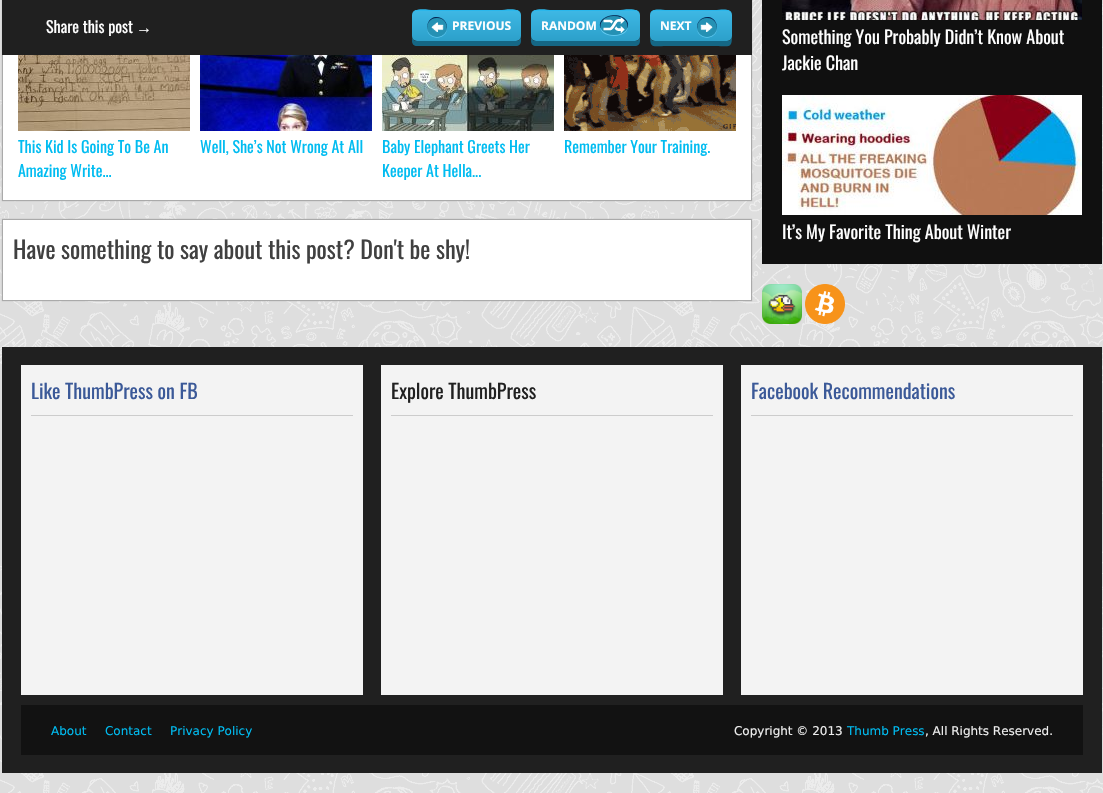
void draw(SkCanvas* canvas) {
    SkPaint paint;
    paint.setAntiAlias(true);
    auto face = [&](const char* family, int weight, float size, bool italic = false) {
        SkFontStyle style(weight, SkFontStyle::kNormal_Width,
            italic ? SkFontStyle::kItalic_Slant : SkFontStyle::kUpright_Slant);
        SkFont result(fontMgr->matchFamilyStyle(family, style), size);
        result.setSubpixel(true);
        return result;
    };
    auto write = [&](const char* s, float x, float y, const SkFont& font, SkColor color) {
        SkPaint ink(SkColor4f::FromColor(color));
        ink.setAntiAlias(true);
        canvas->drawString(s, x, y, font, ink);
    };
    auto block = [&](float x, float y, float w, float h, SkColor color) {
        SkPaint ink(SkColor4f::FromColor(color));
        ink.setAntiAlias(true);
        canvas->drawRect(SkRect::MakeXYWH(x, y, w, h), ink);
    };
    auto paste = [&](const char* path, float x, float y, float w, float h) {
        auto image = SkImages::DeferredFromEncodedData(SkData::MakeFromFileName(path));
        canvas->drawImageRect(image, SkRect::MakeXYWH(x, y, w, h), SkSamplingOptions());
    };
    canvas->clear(SK_ColorWHITE);
    paste("pic1.png", 0, 0, 1103, 793);
    paint.setColor(SkColorSetRGB(170, 170, 170));
    paint.setMaskFilter(SkMaskFilter::MakeBlur(kNormal_SkBlurStyle, 0.5f));
    canvas->drawRect(SkRect::MakeXYWH(2, -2, 750, 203), paint);
    paint.setMaskFilter(nullptr);
    block(2, 0, 750, 55, SkColorSetRGB(32, 32, 32));
    auto kFont1 = face("Oswald", 400, 16);
    write("Share this post", 46, 33, kFont1, SK_ColorWHITE);
    auto kFont2 = face("Liberation Sans", 400, 16);
    write("→", 136, 33, kFont2, SK_ColorWHITE);
    paint.setColor(SkColorSetRGB(21, 103, 133));
    canvas->drawPath(SkPathBuilder().moveTo(412, 36).lineTo(412, 41).cubicTo(412, 44, 414, 46, 417, 46).lineTo(516, 46).cubicTo(519, 46, 521, 44, 521, 41).lineTo(521, 36).cubicTo(521, 39, 519, 41, 516, 41).lineTo(417, 41).cubicTo(414, 41, 412, 39, 412, 36).close().detach(), paint);
    {
        const SkColor colors[] = {SkColorSetRGB(44, 160, 202), SkColorSetRGB(62, 184, 229)};
        const float stops[] = {0, 1};
        const SkPoint ends[] = {{412, 41}, {412, 10}};
        paint.setShader(SkGradientShader::MakeLinear(ends, colors, stops, 2, SkTileMode::kClamp));
        paint.setAlpha(255);
    }
    canvas->drawRoundRect(SkRect::MakeXYWH(412, 10, 109, 31), 5, 5, paint);
    paint.setShader(nullptr);
    paint.setColor(SkColorSetRGB(42, 183, 236));
    canvas->drawPath(SkPathBuilder().moveTo(417, 11).lineTo(516, 11).cubicTo(519, 11, 521, 13, 521, 16).cubicTo(521, 6, 505, 10, 500, 10).lineTo(434, 10).cubicTo(428, 10, 412, 6, 412, 16).cubicTo(412, 13, 414, 11, 417, 11).close().detach(), paint);
    paint.setColor(SkColorSetRGB(96, 201, 240));
    canvas->drawPath(SkPathBuilder().moveTo(447, 27.5f).cubicTo(446.5f, 40, 427.5f, 40, 427, 27.5f).cubicTo(426.5f, 41, 447.5f, 41, 447, 27.5f).close().detach(), paint);
    paint.setColor(SkColorSetRGB(37, 145, 180));
    canvas->drawCircle(437, 27, 10, paint);
    paste("pic2.png", 431, 22, 13, 10);
    paint.setColor(SkColorSetRGB(5, 39, 86));
    canvas->drawPath(SkPathBuilder().moveTo(437, 18).cubicTo(444.5f, 18, 447.5f, 24, 446.5f, 30).cubicTo(450, 18, 432.5f, 11.5f, 428, 23).cubicTo(427, 25, 427, 27.5f, 427.5f, 30).cubicTo(426.5f, 24, 429.5f, 18, 437, 18).close().detach(), paint);
    auto kFont3 = face("Open Sans", 700, 12);
    write("PREVIOUS", 452, 30, kFont3, SK_ColorWHITE);
    paint.setColor(SkColorSetRGB(21, 103, 133));
    canvas->drawPath(SkPathBuilder().moveTo(531, 36).lineTo(531, 41).cubicTo(531, 44, 533, 46, 536, 46).lineTo(635, 46).cubicTo(638, 46, 640, 44, 640, 41).lineTo(640, 36).cubicTo(640, 39, 638, 41, 635, 41).lineTo(536, 41).cubicTo(533, 41, 531, 39, 531, 36).close().detach(), paint);
    {
        const SkColor colors[] = {SkColorSetRGB(44, 160, 202), SkColorSetRGB(62, 184, 229)};
        const float stops[] = {0, 1};
        const SkPoint ends[] = {{531, 41}, {531, 10}};
        paint.setShader(SkGradientShader::MakeLinear(ends, colors, stops, 2, SkTileMode::kClamp));
        paint.setAlpha(255);
    }
    canvas->drawRoundRect(SkRect::MakeXYWH(531, 10, 109, 31), 5, 5, paint);
    paint.setShader(nullptr);
    paint.setColor(SkColorSetRGB(42, 183, 236));
    canvas->drawPath(SkPathBuilder().moveTo(536, 11).lineTo(635, 11).cubicTo(638, 11, 640, 13, 640, 16).cubicTo(640, 6, 624, 10, 618, 10).lineTo(552, 10).cubicTo(547, 10, 531, 6, 531, 16).cubicTo(531, 13, 533, 11, 536, 11).close().detach(), paint);
    write("RANDOM", 541, 30, kFont3, SK_ColorWHITE);
    paint.setColor(SkColorSetRGB(96, 201, 240));
    canvas->drawPath(SkPathBuilder().moveTo(600, 25.5f).cubicTo(599, 39.5f, 629, 39.5f, 628, 25.5f).cubicTo(627, 38, 601, 38, 600, 25.5f).close().detach(), paint);
    paint.setColor(SkColorSetRGB(37, 145, 180));
    canvas->drawOval(SkRect::MakeXYWH(600, 15, 28, 20), paint);
    paste("pic3.png", 603, 17, 22, 16);
    paint.setColor(SkColorSetRGB(5, 39, 86));
    canvas->drawPath(SkPathBuilder().moveTo(614, 16).cubicTo(624.5f, 16, 629, 23, 627, 28.5f).cubicTo(628.5f, 26, 628.5f, 23.5f, 627, 21).cubicTo(620, 9.5f, 594.5f, 16.5f, 601, 28.5f).cubicTo(599, 23, 603.5f, 16, 614, 16).close().detach(), paint);
    paint.setColor(SkColorSetRGB(21, 103, 133));
    canvas->drawPath(SkPathBuilder().moveTo(650, 36).cubicTo(650, 49, 653, 46, 667, 46).lineTo(715, 46).cubicTo(729, 46, 732, 49, 732, 36).cubicTo(732, 39, 730, 41, 727, 41).lineTo(655, 41).cubicTo(652, 41, 650, 39, 650, 36).close().detach(), paint);
    {
        const SkColor colors[] = {SkColorSetRGB(44, 160, 202), SkColorSetRGB(62, 184, 229)};
        const float stops[] = {0, 1};
        const SkPoint ends[] = {{650, 41}, {650, 10}};
        paint.setShader(SkGradientShader::MakeLinear(ends, colors, stops, 2, SkTileMode::kClamp));
        paint.setAlpha(255);
    }
    canvas->drawRoundRect(SkRect::MakeXYWH(650, 10, 82, 31), 5, 5, paint);
    paint.setShader(nullptr);
    paint.setColor(SkColorSetRGB(42, 183, 236));
    canvas->drawPath(SkPathBuilder().moveTo(655, 11).lineTo(727, 11).cubicTo(730, 11, 732, 13, 732, 16).cubicTo(732, 7, 721, 10, 715, 10).lineTo(667, 10).cubicTo(661, 10, 650, 7, 650, 16).cubicTo(650, 13, 652, 11, 655, 11).close().detach(), paint);
    write("NEXT", 660, 30, kFont3, SK_ColorWHITE);
    paint.setColor(SkColorSetRGB(96, 201, 240));
    canvas->drawPath(SkPathBuilder().moveTo(697, 27.5f).cubicTo(696.5f, 41, 717.5f, 41, 717, 27.5f).cubicTo(716.5f, 40, 697.5f, 40, 697, 27.5f).close().detach(), paint);
    paint.setColor(SkColorSetRGB(37, 145, 180));
    canvas->drawCircle(707, 27, 10, paint);
    paste("pic4.png", 700, 22, 13, 10);
    paint.setColor(SkColorSetRGB(5, 39, 86));
    canvas->drawPath(SkPathBuilder().moveTo(707, 18).cubicTo(714.5f, 18, 717.5f, 24, 716.5f, 30).cubicTo(717, 27.5f, 717, 25, 716, 23).cubicTo(711.5f, 11.5f, 694, 18, 697.5f, 30).cubicTo(696.5f, 24, 699.5f, 18, 707, 18).close().detach(), paint);
    block(3, 55, 748, 145, SK_ColorWHITE);
    paste("pic5.png", 18, 55, 172, 76);
    write("This Kid Is Going To Be An", 18, 153, kFont1, SkColorSetRGB(0, 188, 241));
    write("Amazing Write...", 18, 177, kFont1, SkColorSetRGB(0, 188, 241));
    paste("pic6.png", 200, 55, 172, 76);
    write("Well, She’s Not Wrong At All", 200, 153, kFont1, SkColorSetRGB(0, 188, 241));
    paste("pic7.png", 382, 55, 172, 76);
    write("Baby Elephant Greets Her", 382, 153, kFont1, SkColorSetRGB(0, 188, 241));
    write("Keeper At Hella...", 382, 177, kFont1, SkColorSetRGB(0, 188, 241));
    paste("pic8.png", 564, 55, 172, 76);
    write("Remember Your Training.", 564, 153, kFont1, SkColorSetRGB(0, 188, 241));
    paint.setColor(SkColorSetRGB(170, 170, 170));
    paint.setMaskFilter(SkMaskFilter::MakeBlur(kNormal_SkBlurStyle, 0.5f));
    canvas->drawRect(SkRect::MakeXYWH(2, 219, 750, 82), paint);
    paint.setMaskFilter(nullptr);
    block(3, 220, 748, 80, SK_ColorWHITE);
    auto kFont4 = face("Oswald", 400, 24);
    write("Have something to say about this post? Don't be shy!", 13, 259, kFont4, SkColorSetRGB(64, 64, 64));
    block(762, 0, 340, 264, SkColorSetRGB(16, 16, 16));
    paste("pic9.png", 782, 0, 300, 20);
    auto kFont5 = face("Oswald", 400, 18);
    write("Something You Probably Didn’t Know About", 782, 44, kFont5, SK_ColorWHITE);
    write("Jackie Chan", 782, 70, kFont5, SK_ColorWHITE);
    paste("pic10.png", 782, 95, 300, 120);
    write("It’s My Favorite Thing About Winter", 782, 239, kFont5, SK_ColorWHITE);
    paste("pic11.png", 762, 284, 40, 40);
    paste("pic12.png", 805, 284, 40, 40);
    block(2, 347, 1100, 426, SkColorSetRGB(32, 32, 32));
    block(21, 365, 342, 330, SkColorSetRGB(243, 243, 243));
    block(31, 415, 322, 1, SkColorSetRGB(204, 204, 204));
    auto kFont6 = face("Oswald", 400, 20);
    write("Like ThumbPress on FB", 31, 399, kFont6, SkColorSetRGB(59, 89, 152));
    block(381, 365, 342, 330, SkColorSetRGB(243, 243, 243));
    block(391, 415, 322, 1, SkColorSetRGB(204, 204, 204));
    write("Explore ThumbPress", 391, 399, kFont6, SkColorSetRGB(32, 32, 32));
    block(741, 365, 342, 330, SkColorSetRGB(243, 243, 243));
    block(751, 415, 322, 1, SkColorSetRGB(204, 204, 204));
    write("Facebook Recommendations", 751, 399, kFont6, SkColorSetRGB(59, 89, 152));
    block(21, 705, 1062, 50, SkColorSetRGB(18, 18, 18));
    auto kFont7 = face("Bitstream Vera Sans", 400, 12);
    write("About", 51, 735, kFont7, SkColorSetRGB(0, 188, 241));
    write("Contact", 105, 735, kFont7, SkColorSetRGB(0, 188, 241));
    write("Privacy Policy", 170, 735, kFont7, SkColorSetRGB(0, 188, 241));
    write("Copyright © 2013", 734, 735, kFont7, SkColorSetRGB(238, 238, 238));
    write("Thumb Press", 847, 735, kFont7, SkColorSetRGB(0, 188, 241));
    write(", All Rights Reserved.", 925, 735, kFont7, SkColorSetRGB(238, 238, 238));
}
